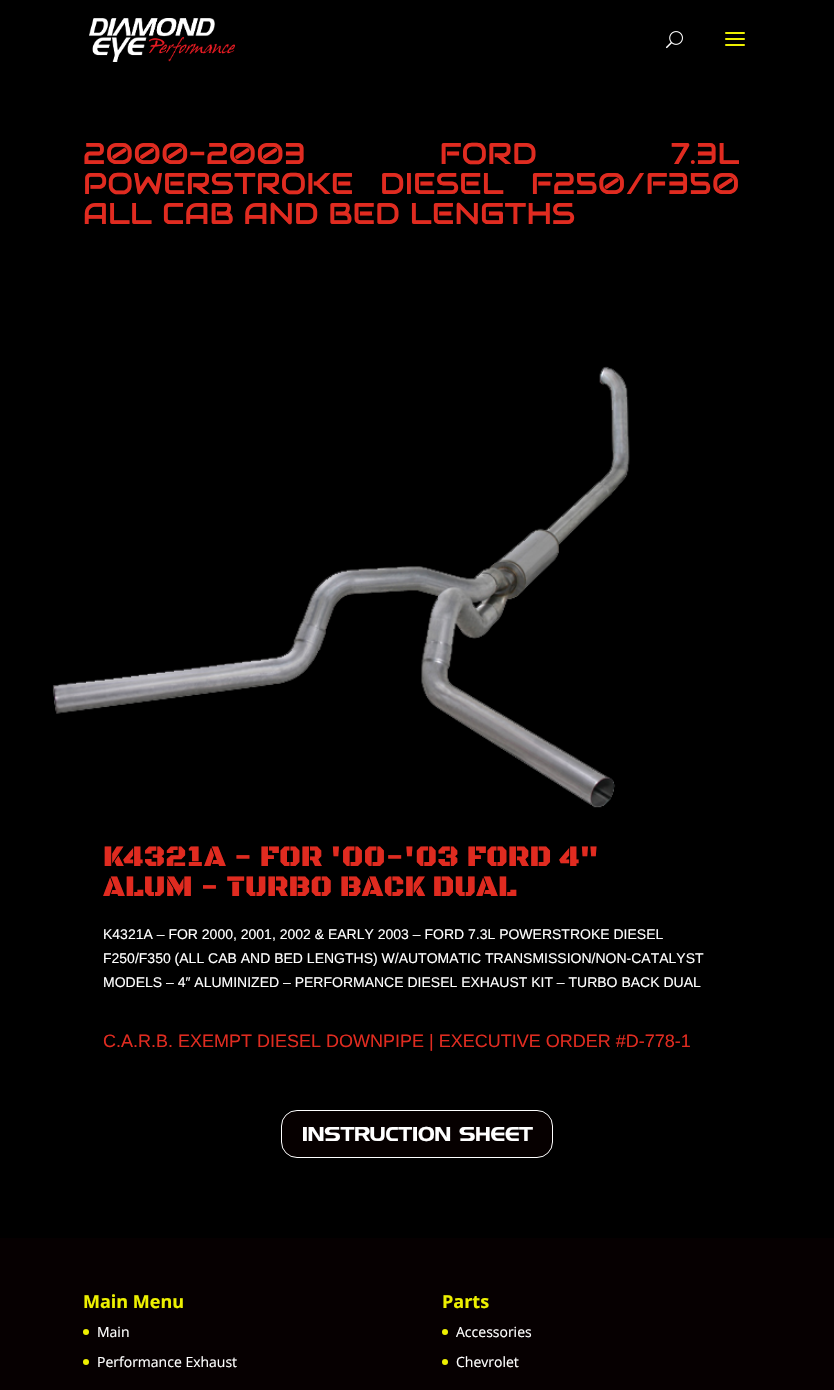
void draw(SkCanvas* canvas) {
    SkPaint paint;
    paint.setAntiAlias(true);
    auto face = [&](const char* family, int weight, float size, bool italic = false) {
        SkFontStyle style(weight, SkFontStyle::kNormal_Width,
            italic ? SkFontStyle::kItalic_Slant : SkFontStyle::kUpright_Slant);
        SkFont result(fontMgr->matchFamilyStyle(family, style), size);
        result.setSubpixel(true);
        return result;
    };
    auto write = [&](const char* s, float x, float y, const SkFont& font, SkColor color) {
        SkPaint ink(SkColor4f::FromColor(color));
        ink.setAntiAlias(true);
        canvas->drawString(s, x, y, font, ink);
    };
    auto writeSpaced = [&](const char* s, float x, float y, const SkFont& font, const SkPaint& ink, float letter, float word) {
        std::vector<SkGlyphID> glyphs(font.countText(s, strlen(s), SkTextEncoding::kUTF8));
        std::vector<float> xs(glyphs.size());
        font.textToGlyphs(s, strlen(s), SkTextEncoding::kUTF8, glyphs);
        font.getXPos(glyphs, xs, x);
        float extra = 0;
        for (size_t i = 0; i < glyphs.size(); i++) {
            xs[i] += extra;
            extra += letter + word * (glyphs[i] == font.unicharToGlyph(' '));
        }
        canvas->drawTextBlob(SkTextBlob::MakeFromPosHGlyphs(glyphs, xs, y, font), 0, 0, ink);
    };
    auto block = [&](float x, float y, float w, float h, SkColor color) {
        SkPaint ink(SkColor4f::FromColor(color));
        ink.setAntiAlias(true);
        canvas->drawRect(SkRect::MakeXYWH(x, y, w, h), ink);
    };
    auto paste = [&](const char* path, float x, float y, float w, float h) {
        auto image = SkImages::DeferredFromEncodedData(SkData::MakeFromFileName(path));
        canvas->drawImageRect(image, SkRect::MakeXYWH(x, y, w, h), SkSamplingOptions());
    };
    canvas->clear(SkColorSetRGB(6, 0, 1));
    block(0, 0, 834, 1238, SK_ColorBLACK);
    paste("pic1.png", 89, 18, 146, 44);
    paste("pic2.png", 666, 31, 17, 18);
    paste("pic3.png", 725, 32, 20, 14);
    auto kFont1 = face("Audiowide", 400, 30);
    paint.setColor(SkColorSetRGB(224, 43, 32));
    writeSpaced("2000-2003 FORD 7.3L", 83, 164, kFont1, paint, 0, 124);
    writeSpaced("POWERSTROKE DIESEL F250/F350", 83, 194, kFont1, paint, 0, 17);
    write("ALL CAB AND BED LENGTHS", 83, 224, kFont1, SkColorSetRGB(224, 43, 32));
    paste("pic4.png", 52, 366, 578, 442);
    auto kFont2 = face("Black Ops One", 900, 30);
    write("K4321A - FOR '00-'03 FORD 4\"", 103, 866, kFont2, SkColorSetRGB(224, 43, 32));
    write("ALUM - TURBO BACK DUAL", 103, 896, kFont2, SkColorSetRGB(224, 43, 32));
    auto kFont3 = face("Liberation Sans", 400, 14);
    write("K4321A – FOR 2000, 2001, 2002 & EARLY 2003 – FORD 7.3L POWERSTROKE DIESEL", 103, 939, kFont3, SK_ColorWHITE);
    write("F250/F350 (ALL CAB AND BED LENGTHS) W/AUTOMATIC TRANSMISSION/NON-CATALYST", 103, 963, kFont3, SK_ColorWHITE);
    write("MODELS – 4″ ALUMINIZED – PERFORMANCE DIESEL EXHAUST KIT – TURBO BACK DUAL", 103, 987, kFont3, SK_ColorWHITE);
    auto kFont4 = face("Liberation Sans", 400, 18);
    write("C.A.R.B. EXEMPT DIESEL DOWNPIPE | EXECUTIVE ORDER #D-778-1", 103, 1047, kFont4, SkColorSetRGB(224, 43, 32));
    paint.setColor(SkColorSetRGB(6, 0, 0));
    canvas->drawRoundRect(SkRect::MakeXYWH(281.5f, 1110.5f, 271, 47), 15.5f, 15.5f, paint);
    paint.setStyle(SkPaint::kStroke_Style);
    paint.setStrokeWidth(1);
    paint.setColor(SK_ColorWHITE);
    canvas->drawRoundRect(SkRect::MakeXYWH(281.5f, 1110.5f, 271, 47), 15.5f, 15.5f, paint);
    auto kFont5 = face("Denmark", 100, 20);
    write("INSTRUCTION SHEET", 302, 1141, kFont5, SK_ColorWHITE);
    auto kFont6 = face("Open Sans", 700, 18);
    write("Main Menu", 83, 1308, kFont6, SkColorSetRGB(237, 240, 0));
    paint.setStyle(SkPaint::kFill_Style);
    paint.setColor(SkColorSetRGB(237, 240, 0));
    canvas->drawCircle(86, 1332, 3, paint);
    auto kFont7 = face("Open Sans", 400, 14);
    write("Main", 97, 1337, kFont7, SK_ColorWHITE);
    canvas->drawCircle(86, 1362, 3, paint);
    write("Performance Exhaust", 97, 1367, kFont7, SK_ColorWHITE);
    write("Parts", 442, 1308, kFont6, SkColorSetRGB(237, 240, 0));
    canvas->drawCircle(445, 1332, 3, paint);
    write("Accessories", 456, 1337, kFont7, SK_ColorWHITE);
    canvas->drawCircle(445, 1362, 3, paint);
    write("Chevrolet", 456, 1367, kFont7, SK_ColorWHITE);
}
